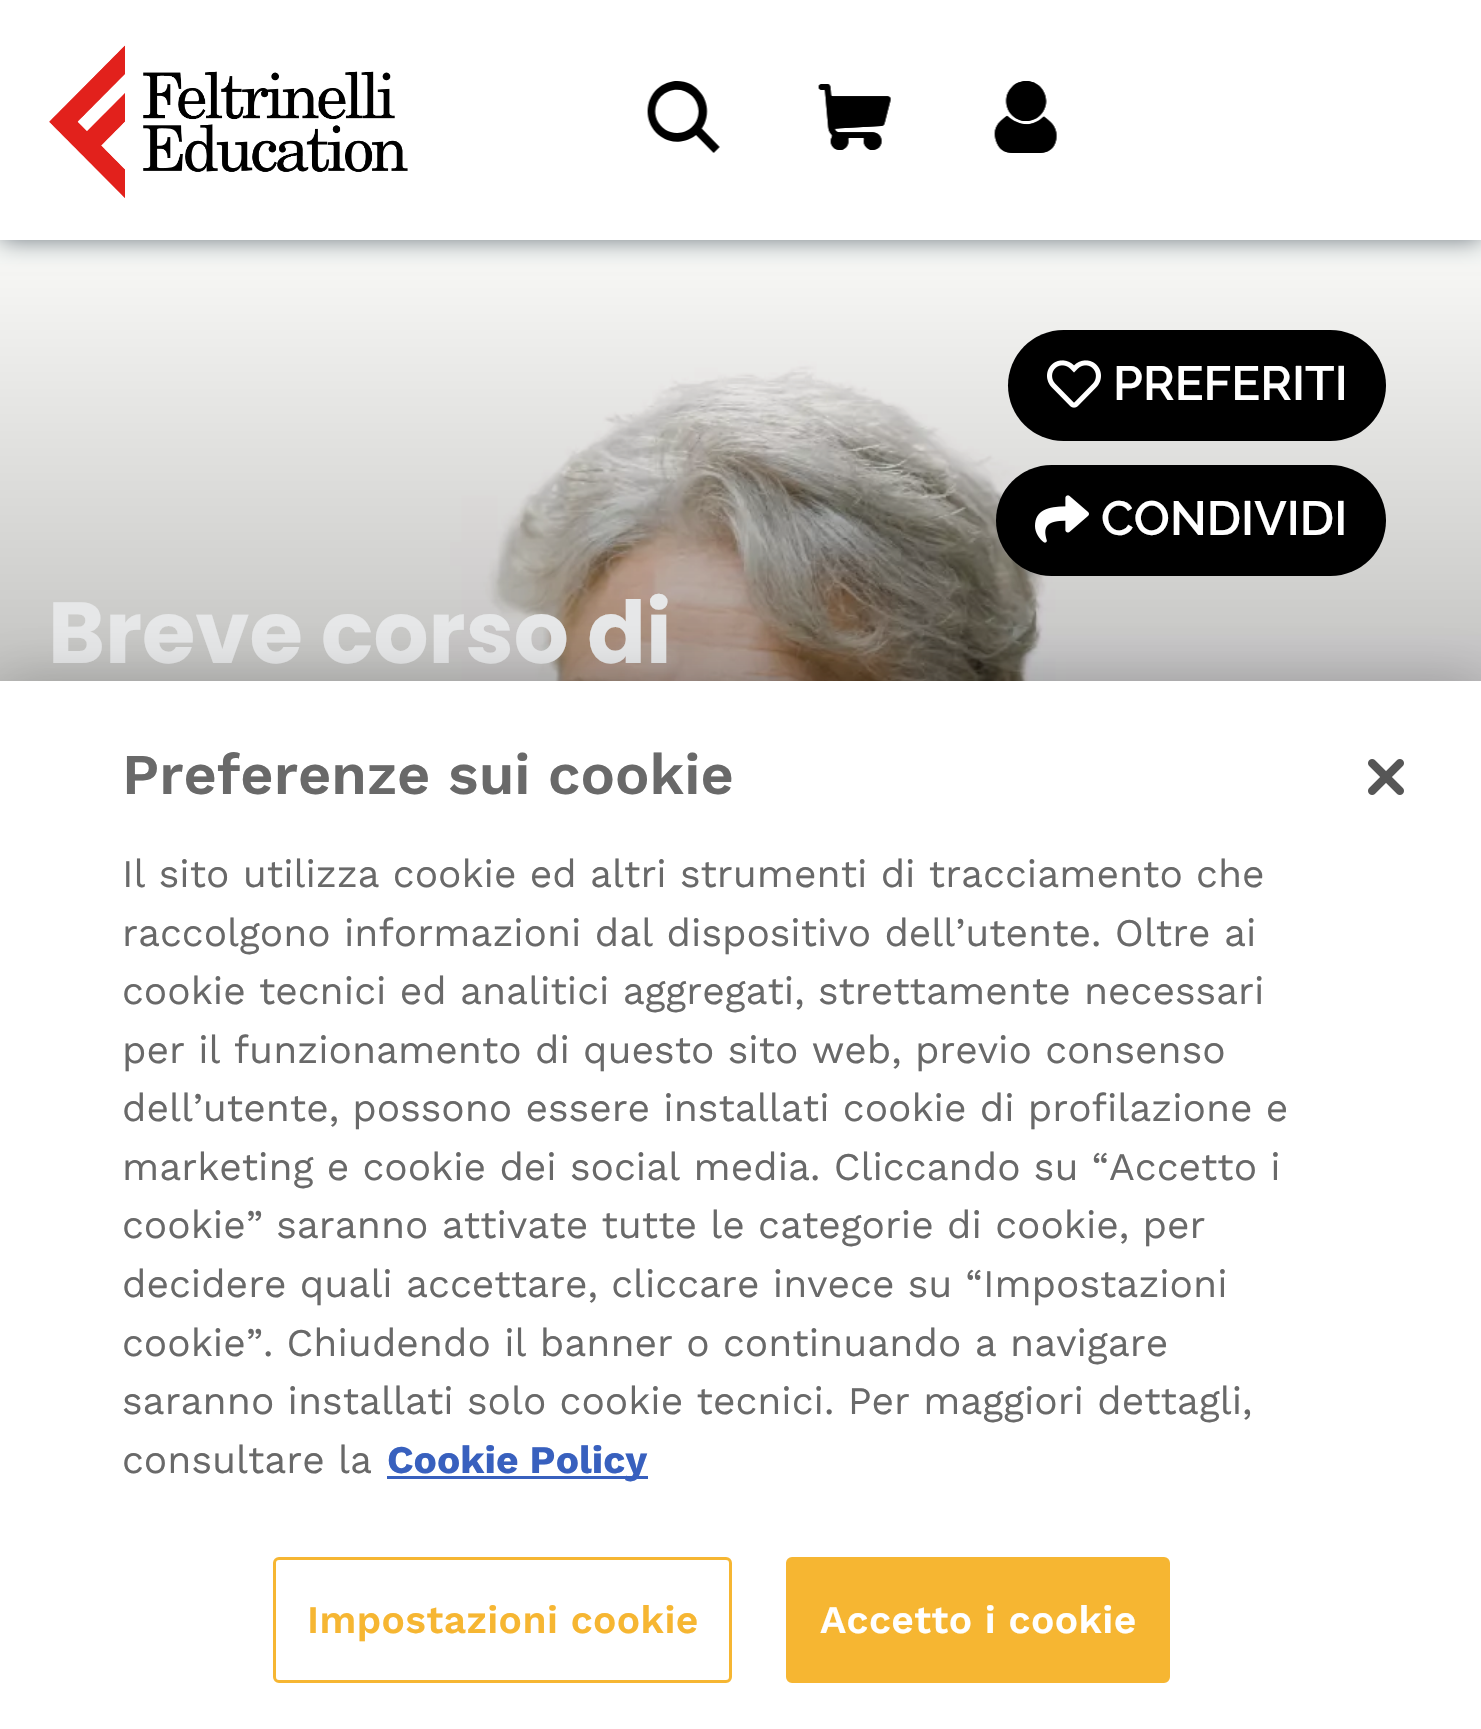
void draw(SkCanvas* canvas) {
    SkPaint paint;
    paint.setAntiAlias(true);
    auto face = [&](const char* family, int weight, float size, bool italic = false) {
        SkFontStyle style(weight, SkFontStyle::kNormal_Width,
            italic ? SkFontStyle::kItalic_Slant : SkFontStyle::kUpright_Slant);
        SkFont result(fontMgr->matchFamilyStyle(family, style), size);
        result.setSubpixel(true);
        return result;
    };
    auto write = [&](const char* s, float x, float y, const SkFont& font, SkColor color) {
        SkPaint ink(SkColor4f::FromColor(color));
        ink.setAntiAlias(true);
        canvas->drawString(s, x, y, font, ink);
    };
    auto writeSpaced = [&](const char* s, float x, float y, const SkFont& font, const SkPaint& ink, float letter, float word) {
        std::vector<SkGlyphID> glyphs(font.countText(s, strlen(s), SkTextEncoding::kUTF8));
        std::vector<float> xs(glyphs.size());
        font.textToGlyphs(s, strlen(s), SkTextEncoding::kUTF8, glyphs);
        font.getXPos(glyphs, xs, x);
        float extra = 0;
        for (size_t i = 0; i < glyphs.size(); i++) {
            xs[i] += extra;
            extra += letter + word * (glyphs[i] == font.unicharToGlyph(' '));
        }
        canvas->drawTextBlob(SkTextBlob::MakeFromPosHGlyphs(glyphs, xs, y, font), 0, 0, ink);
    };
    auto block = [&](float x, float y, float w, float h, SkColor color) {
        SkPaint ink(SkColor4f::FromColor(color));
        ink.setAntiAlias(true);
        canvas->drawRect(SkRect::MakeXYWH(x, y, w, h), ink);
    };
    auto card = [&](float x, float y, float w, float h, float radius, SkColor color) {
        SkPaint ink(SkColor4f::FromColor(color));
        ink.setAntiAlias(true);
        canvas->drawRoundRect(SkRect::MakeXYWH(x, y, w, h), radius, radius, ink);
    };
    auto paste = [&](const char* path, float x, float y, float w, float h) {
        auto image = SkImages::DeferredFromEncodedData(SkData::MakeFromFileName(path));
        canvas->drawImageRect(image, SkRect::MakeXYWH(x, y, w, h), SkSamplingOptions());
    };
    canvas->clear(SK_ColorWHITE);
    paste("pic5.png", 0, 240, 1481, 441);
    paint.setColor(SkColorSetRGB(108, 117, 125));
    paint.setMaskFilter(SkMaskFilter::MakeBlur(kNormal_SkBlurStyle, 12));
    canvas->drawRect(SkRect::MakeXYWH(0, 0, 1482, 240), paint);
    paint.setMaskFilter(nullptr);
    block(0, 0, 1481, 240, SK_ColorWHITE);
    paste("pic1.png", 49, 45, 359, 153);
    paste("pic2.png", 647, 81, 73, 72);
    paste("pic3.png", 818, 84, 73, 66);
    paste("pic4.png", 994, 81, 63, 72);
    card(1008, 330, 378, 111, 55.5f, SK_ColorBLACK);
    paste("pic6.png", 1047, 360, 54, 48);
    auto kFont1 = face("Raleway", 600, 48);
    write("PREFERITI", 1113, 400, kFont1, SK_ColorWHITE);
    card(996, 465, 390, 111, 55.5f, SK_ColorBLACK);
    paste("pic7.png", 1035, 495, 54, 48);
    write("CONDIVIDI", 1101, 535, kFont1, SK_ColorWHITE);
    auto kFont2 = face("Poppins", 700, 86.5f);
    write("Breve corso di", 48, 663, kFont2, SkColorSetRGB(231, 232, 233));
    paint.setColor(SkColorSetARGB(51, 0, 0, 0));
    paint.setMaskFilter(SkMaskFilter::MakeBlur(kNormal_SkBlurStyle, 27));
    canvas->drawRect(SkRect::MakeXYWH(0, 681, 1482, 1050), paint);
    paint.setMaskFilter(nullptr);
    block(0, 681, 1481, 1048, SK_ColorWHITE);
    auto kFont3 = face("Work Sans", 600, 57.6f);
    write("Preferenze sui cookie", 122, 794, kFont3, SkColorSetRGB(105, 105, 105));
    auto kFont4 = face("Work Sans", 400, 39);
    write("Il sito utilizza cookie ed altri strumenti di tracciamento che", 122, 887, kFont4, SkColorSetRGB(105, 105, 105));
    write("raccolgono informazioni dal dispositivo dell’utente. Oltre ai", 122, 946, kFont4, SkColorSetRGB(105, 105, 105));
    write("cookie tecnici ed analitici aggregati, strettamente necessari", 122, 1004, kFont4, SkColorSetRGB(105, 105, 105));
    write("per il funzionamento di questo sito web, previo consenso", 122, 1063, kFont4, SkColorSetRGB(105, 105, 105));
    write("dell’utente, possono essere installati cookie di profilazione e", 122, 1121, kFont4, SkColorSetRGB(105, 105, 105));
    write("marketing e cookie dei social media. Cliccando su “Accetto i", 122, 1180, kFont4, SkColorSetRGB(105, 105, 105));
    write("cookie” saranno attivate tutte le categorie di cookie, per", 122, 1238, kFont4, SkColorSetRGB(105, 105, 105));
    write("decidere quali accettare, cliccare invece su “Impostazioni", 122, 1297, kFont4, SkColorSetRGB(105, 105, 105));
    write("cookie”. Chiudendo il banner o continuando a navigare", 122, 1356, kFont4, SkColorSetRGB(105, 105, 105));
    write("saranno installati solo cookie tecnici. Per maggiori dettagli,", 122, 1414, kFont4, SkColorSetRGB(105, 105, 105));
    write("consultare la", 122, 1473, kFont4, SkColorSetRGB(105, 105, 105));
    block(387, 1476, 261, 3, SkColorSetRGB(56, 96, 190));
    auto kFont5 = face("Work Sans", 700, 39);
    write("Cookie Policy", 387, 1473, kFont5, SkColorSetRGB(56, 96, 190));
    paint.setStyle(SkPaint::kStroke_Style);
    paint.setStrokeWidth(3);
    paint.setColor(SkColorSetRGB(246, 182, 50));
    canvas->drawRoundRect(SkRect::MakeXYWH(274.5f, 1558.5f, 456, 123), 4.5f, 4.5f, paint);
    auto kFont6 = face("Work Sans", 600, 39);
    paint.setStyle(SkPaint::kFill_Style);
    writeSpaced("Impostazioni cookie", 307, 1633, kFont6, paint, 0.4f, 0);
    canvas->drawRoundRect(SkRect::MakeXYWH(787.5f, 1558.5f, 381, 123), 4.5f, 4.5f, paint);
    paint.setStyle(SkPaint::kStroke_Style);
    canvas->drawRoundRect(SkRect::MakeXYWH(787.5f, 1558.5f, 381, 123), 4.5f, 4.5f, paint);
    paint.setStyle(SkPaint::kFill_Style);
    paint.setColor(SK_ColorWHITE);
    writeSpaced("Accetto i cookie", 820, 1633, kFont6, paint, 0.4f, 0);
    paste("pic8.png", 1368, 759, 36, 36);
}
